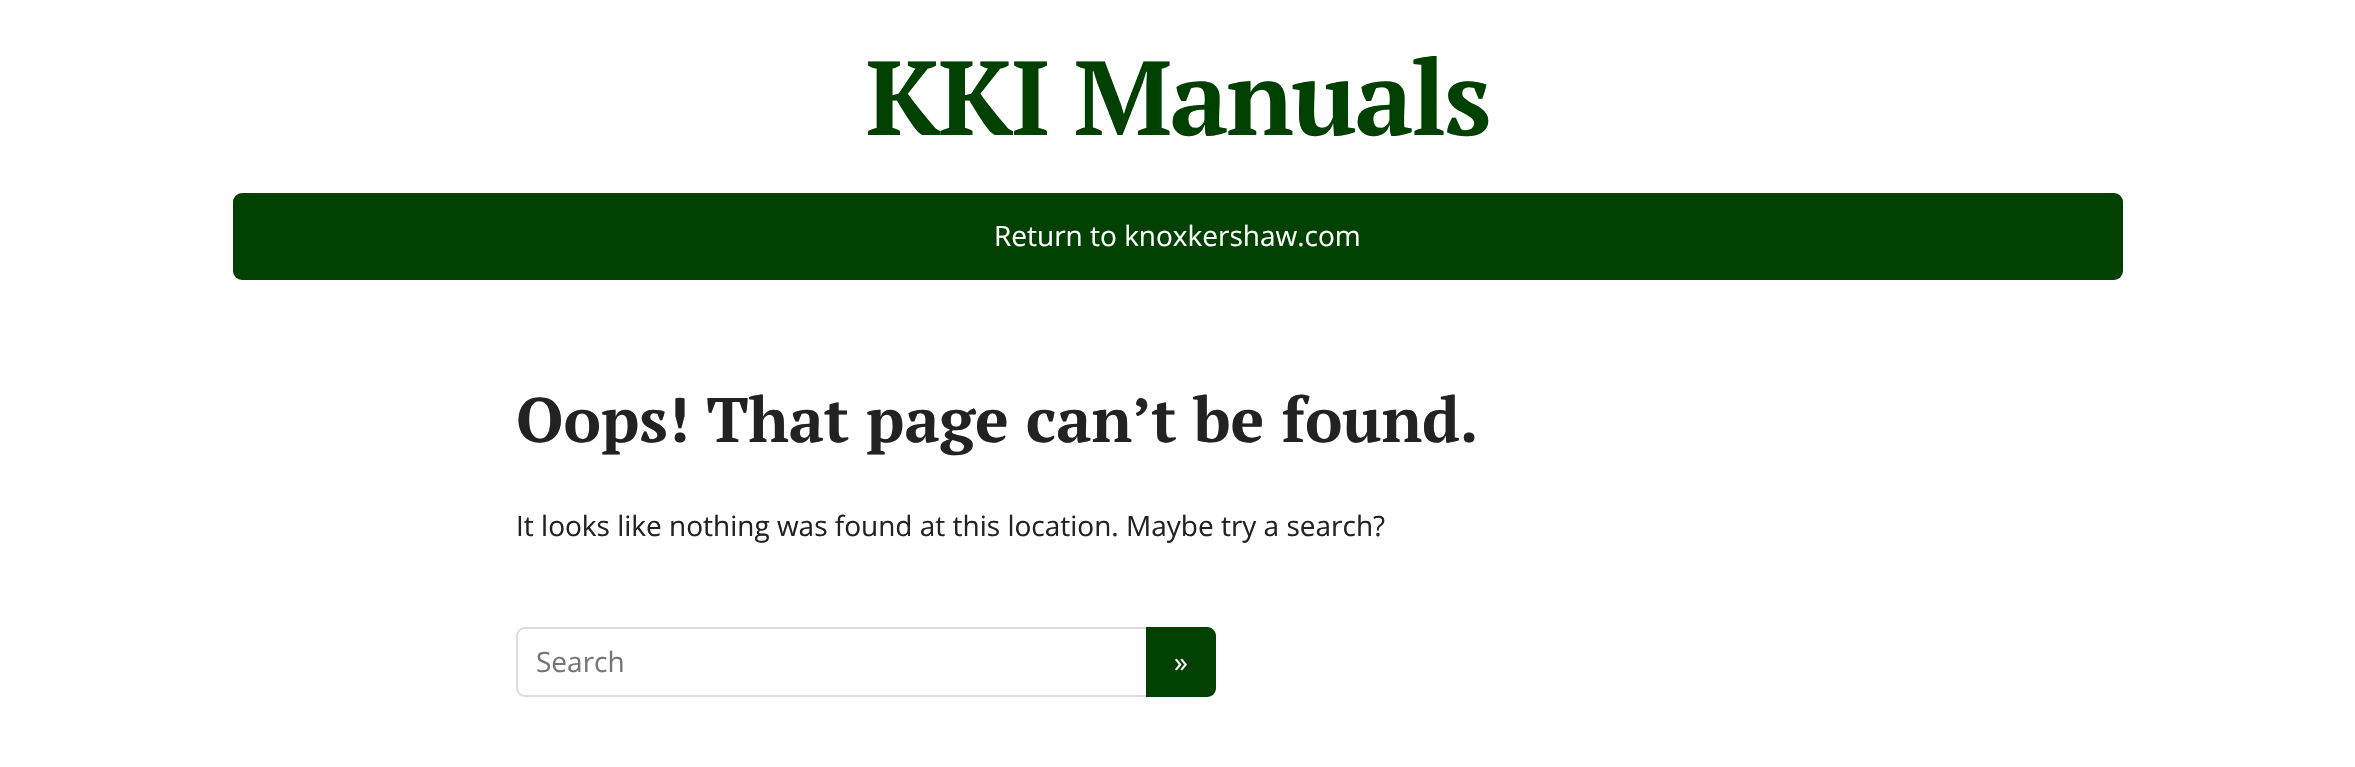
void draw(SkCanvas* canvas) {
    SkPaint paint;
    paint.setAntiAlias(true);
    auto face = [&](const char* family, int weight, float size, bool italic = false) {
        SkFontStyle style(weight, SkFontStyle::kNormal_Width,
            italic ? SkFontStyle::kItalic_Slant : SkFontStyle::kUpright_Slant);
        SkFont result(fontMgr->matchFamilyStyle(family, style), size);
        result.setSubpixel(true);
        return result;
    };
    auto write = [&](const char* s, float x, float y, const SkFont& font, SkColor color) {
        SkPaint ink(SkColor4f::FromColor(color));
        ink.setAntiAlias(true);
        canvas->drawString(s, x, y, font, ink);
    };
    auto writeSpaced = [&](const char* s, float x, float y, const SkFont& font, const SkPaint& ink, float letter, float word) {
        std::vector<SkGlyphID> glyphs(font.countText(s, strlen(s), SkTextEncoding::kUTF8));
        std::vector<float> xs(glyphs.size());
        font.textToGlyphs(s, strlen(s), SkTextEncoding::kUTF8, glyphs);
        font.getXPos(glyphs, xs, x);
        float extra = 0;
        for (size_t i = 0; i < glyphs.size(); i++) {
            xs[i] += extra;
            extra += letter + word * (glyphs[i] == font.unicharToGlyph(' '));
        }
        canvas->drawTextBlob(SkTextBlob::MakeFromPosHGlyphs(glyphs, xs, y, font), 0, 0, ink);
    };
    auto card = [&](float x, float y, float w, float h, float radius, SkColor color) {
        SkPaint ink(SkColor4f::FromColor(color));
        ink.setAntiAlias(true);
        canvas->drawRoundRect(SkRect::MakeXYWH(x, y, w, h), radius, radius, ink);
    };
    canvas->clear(SK_ColorWHITE);
    auto kFont1 = face("PT Serif", 700, 105);
    paint.setColor(SkColorSetRGB(0, 64, 0));
    writeSpaced("KKI Manuals", 866, 135, kFont1, paint, -2.1f, 0);
    card(233, 193, 1890, 87, 9, SkColorSetRGB(0, 64, 0));
    auto kFont2 = face("Open Sans", 400, 28);
    write("Return to knoxkershaw.com", 994, 246, kFont2, SK_ColorWHITE);
    auto kFont3 = face("PT Serif", 700, 63);
    write("Oops! That page can’t be found.", 516, 442, kFont3, SkColorSetRGB(34, 34, 34));
    write("It looks like nothing was found at this location. Maybe try a search?", 516, 536, kFont2, SkColorSetRGB(34, 34, 34));
    paint.setStyle(SkPaint::kStroke_Style);
    paint.setStrokeWidth(2);
    paint.setColor(SkColorSetRGB(221, 221, 221));
    canvas->drawRoundRect(SkRect::MakeXYWH(517, 628, 667, 68), 8, 8, paint);
    write("Search", 536, 672, kFont2, SkColorSetRGB(117, 117, 117));
    paint.setStyle(SkPaint::kFill_Style);
    paint.setColor(SkColorSetRGB(0, 64, 0));
    canvas->drawPath(SkPathBuilder().moveTo(1146, 627).lineTo(1207, 627).cubicTo(1212, 627, 1216, 631, 1216, 636).lineTo(1216, 688).cubicTo(1216, 693, 1212, 697, 1207, 697).lineTo(1146, 697).close().detach(), paint);
    write("»", 1174, 672, kFont2, SK_ColorWHITE);
}
